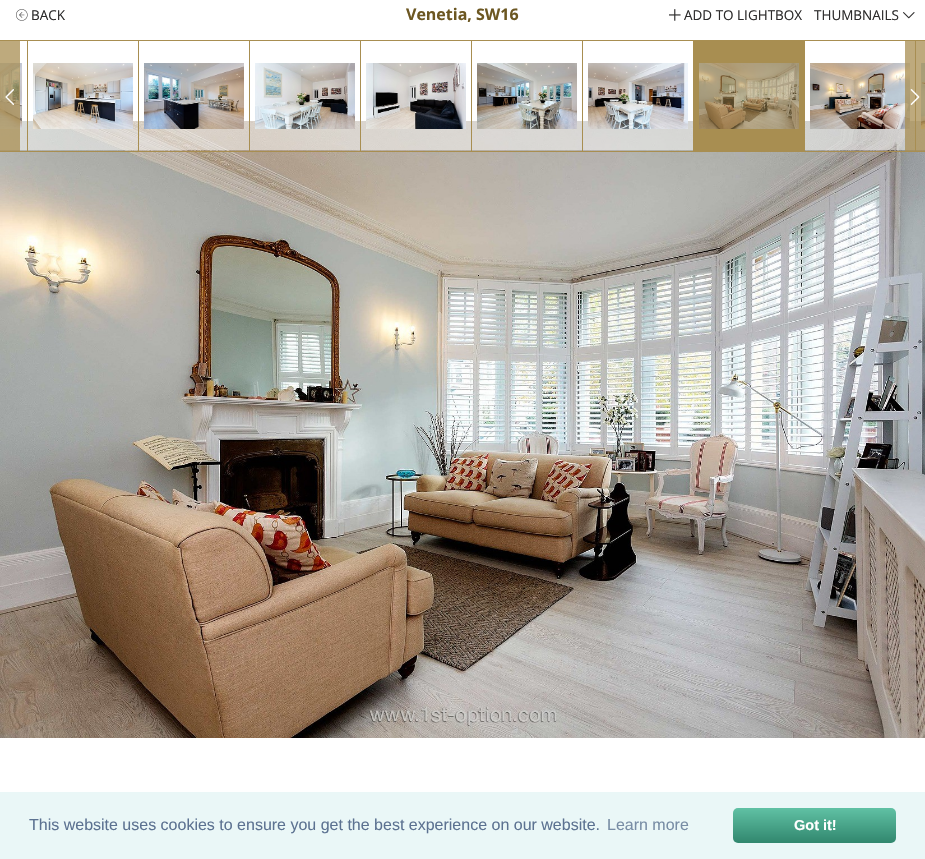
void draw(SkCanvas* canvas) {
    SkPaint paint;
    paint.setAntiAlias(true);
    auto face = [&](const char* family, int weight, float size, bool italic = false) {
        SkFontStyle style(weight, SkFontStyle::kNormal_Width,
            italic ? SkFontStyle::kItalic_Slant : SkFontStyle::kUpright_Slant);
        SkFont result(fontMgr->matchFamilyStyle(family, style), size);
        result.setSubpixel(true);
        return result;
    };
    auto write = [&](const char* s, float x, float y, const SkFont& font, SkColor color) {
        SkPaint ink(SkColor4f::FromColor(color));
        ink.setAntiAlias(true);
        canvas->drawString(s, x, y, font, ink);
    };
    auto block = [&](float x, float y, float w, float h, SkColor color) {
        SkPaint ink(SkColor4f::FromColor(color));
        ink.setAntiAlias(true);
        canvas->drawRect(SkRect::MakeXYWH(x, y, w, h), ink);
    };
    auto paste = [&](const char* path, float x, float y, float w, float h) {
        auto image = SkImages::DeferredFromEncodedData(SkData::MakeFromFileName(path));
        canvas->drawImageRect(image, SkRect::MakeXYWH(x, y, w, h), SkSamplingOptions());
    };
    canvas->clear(SK_ColorWHITE);
    paste("pic1.png", 16, 9, 12, 12);
    auto kFont1 = face("Open Sans", 400, 13.5f);
    write("BACK", 31, 20, kFont1, SkColorSetRGB(44, 43, 43));
    auto kFont2 = face("Open Sans", 700, 16);
    write("Venetia, SW16", 406, 20, kFont2, SkColorSetRGB(108, 87, 34));
    paste("pic2.png", 669, 9, 12, 12);
    write("ADD TO LIGHTBOX", 684, 20, kFont1, SkColorSetRGB(44, 43, 43));
    write("THUMBNAILS", 814, 20, kFont1, SkColorSetRGB(44, 43, 43));
    paste("pic3.png", 903, 12, 12, 7);
    paste("pic16.png", 0, 121, 925, 617);
    block(0, 121, 925, 29, SkColorSetARGB(128, 255, 255, 255));
    paint.setStyle(SkPaint::kStroke_Style);
    paint.setStrokeWidth(1);
    paint.setColor(SkColorSetRGB(168, 142, 81));
    canvas->drawRect(SkRect::MakeXYWH(-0.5f, 40.5f, 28, 111), paint);
    paste("pic4.png", 0, 63, 22, 66);
    canvas->drawRect(SkRect::MakeXYWH(27.5f, 40.5f, 111, 111), paint);
    paste("pic5.png", 33, 63, 100, 66);
    canvas->drawRect(SkRect::MakeXYWH(138.5f, 40.5f, 111, 111), paint);
    paste("pic6.png", 144, 63, 100, 66);
    canvas->drawRect(SkRect::MakeXYWH(249.5f, 40.5f, 111, 111), paint);
    paste("pic7.png", 255, 63, 100, 66);
    canvas->drawRect(SkRect::MakeXYWH(360.5f, 40.5f, 111, 111), paint);
    paste("pic8.png", 366, 63, 100, 66);
    canvas->drawRect(SkRect::MakeXYWH(471.5f, 40.5f, 111, 111), paint);
    paste("pic9.png", 477, 63, 100, 66);
    canvas->drawRect(SkRect::MakeXYWH(582.5f, 40.5f, 111, 111), paint);
    paste("pic10.png", 588, 63, 100, 66);
    block(694, 40, 110, 112, SkColorSetRGB(168, 142, 81));
    paste("pic11.png", 699, 63, 100, 66);
    canvas->drawRect(SkRect::MakeXYWH(804.5f, 40.5f, 111, 111), paint);
    paste("pic12.png", 810, 63, 100, 66);
    canvas->drawRect(SkRect::MakeXYWH(915.5f, 40.5f, 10, 111), paint);
    paste("pic13.png", 921, 63, 4, 66);
    block(0, 41, 20, 110, SkColorSetARGB(191, 168, 142, 81));
    paste("pic14.png", 5, 89, 9, 16);
    block(905, 41, 20, 110, SkColorSetARGB(191, 168, 142, 81));
    paste("pic15.png", 910, 89, 10, 16);
    block(0, 792, 925, 67, SkColorSetRGB(234, 247, 247));
    auto kFont3 = face("Liberation Sans", 400, 16);
    write("This website uses cookies to ensure you get the best experience on our website.", 29, 830, kFont3, SkColorSetRGB(92, 114, 145));
    write("Learn more", 607, 830, kFont3, SkColorSetRGB(120, 141, 165));
    paint.setStyle(SkPaint::kFill_Style);
    {
        const SkColor colors[] = {SkColorSetRGB(49, 135, 110), SkColorSetRGB(96, 193, 164)};
        const float stops[] = {0, 1};
        const SkPoint ends[] = {{815, 843}, {815, 808}};
        paint.setShader(SkGradientShader::MakeLinear(ends, colors, stops, 2, SkTileMode::kClamp));
        paint.setAlpha(255);
    }
    canvas->drawRoundRect(SkRect::MakeXYWH(733, 808, 163, 35), 5, 5, paint);
    auto kFont4 = face("Liberation Sans", 700, 14.5f);
    write("Got it!", 794, 830, kFont4, SK_ColorWHITE);
}
